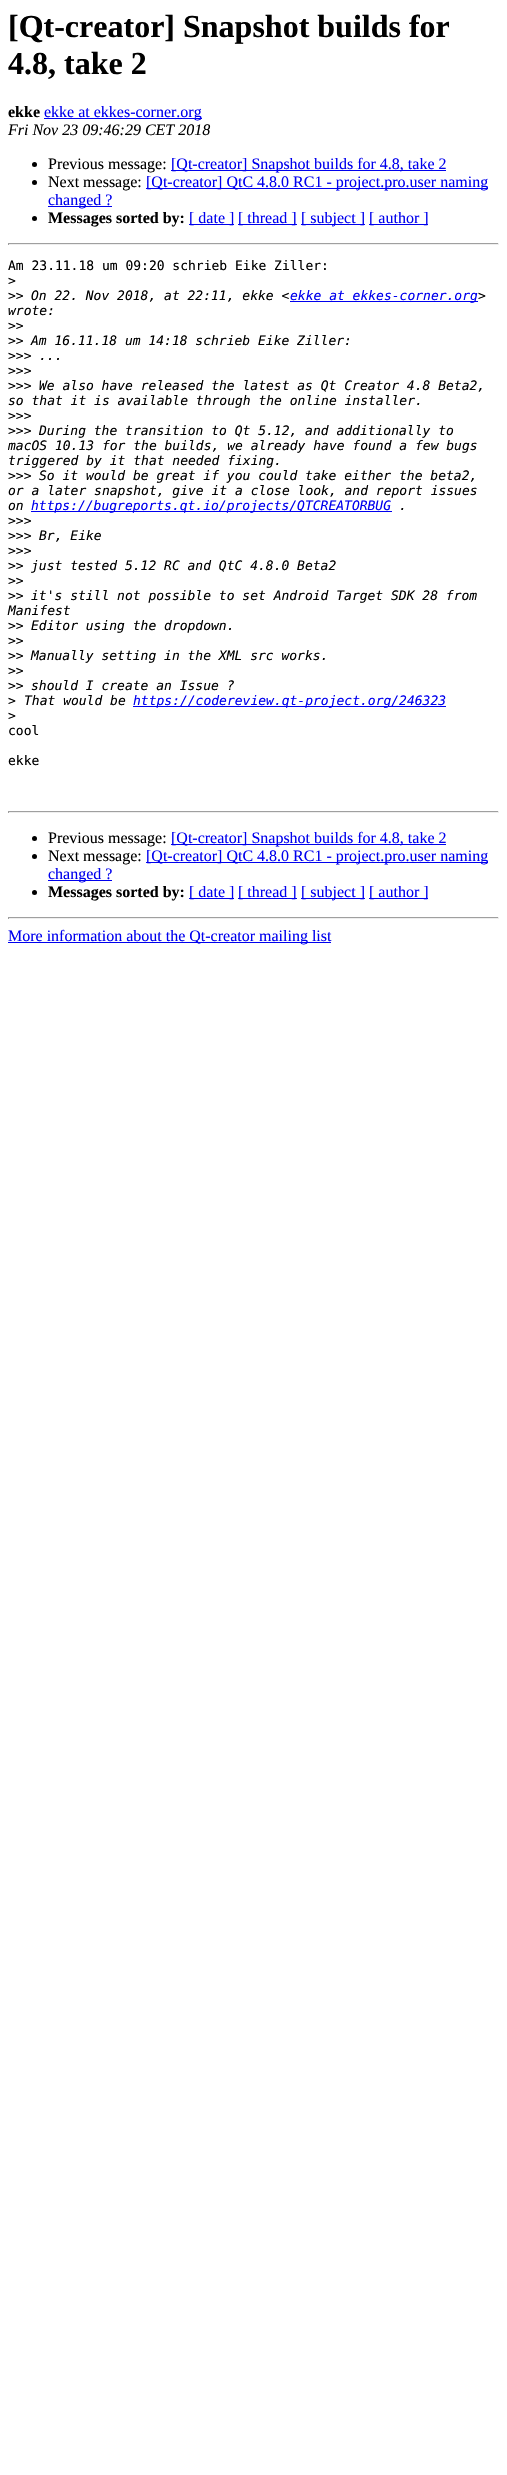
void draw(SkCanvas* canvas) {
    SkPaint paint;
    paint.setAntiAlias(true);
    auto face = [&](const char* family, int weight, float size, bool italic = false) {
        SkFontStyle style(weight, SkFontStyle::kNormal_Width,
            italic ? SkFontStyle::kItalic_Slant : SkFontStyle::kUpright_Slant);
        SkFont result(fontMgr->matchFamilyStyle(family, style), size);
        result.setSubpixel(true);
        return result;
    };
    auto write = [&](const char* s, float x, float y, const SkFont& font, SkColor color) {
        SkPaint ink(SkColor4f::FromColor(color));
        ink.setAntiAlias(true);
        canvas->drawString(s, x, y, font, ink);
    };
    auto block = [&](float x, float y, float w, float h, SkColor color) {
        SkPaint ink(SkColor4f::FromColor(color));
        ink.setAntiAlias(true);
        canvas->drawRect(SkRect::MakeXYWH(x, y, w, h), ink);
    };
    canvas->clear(SK_ColorWHITE);
    auto kFont1 = face("Liberation Serif", 700, 32);
    write("[Qt-creator] Snapshot builds for", 8, 37, kFont1, SK_ColorBLACK);
    write("4.8, take 2", 8, 74, kFont1, SK_ColorBLACK);
    auto kFont2 = face("Liberation Serif", 700, 16);
    write("ekke", 8, 117, kFont2, SK_ColorBLACK);
    block(44, 118, 158, 1, SkColorSetRGB(0, 0, 238));
    auto kFont3 = face("Liberation Serif", 400, 16);
    write("ekke at ekkes-corner.org", 44, 117, kFont3, SkColorSetRGB(0, 0, 238));
    auto kFont4 = face("Liberation Serif", 400, 16, true);
    write("Fri Nov 23 09:46:29 CET 2018", 8, 135, kFont4, SK_ColorBLACK);
    paint.setColor(SK_ColorBLACK);
    canvas->drawCircle(34.5f, 164.5f, 2.5f, paint);
    write("Previous message:", 48, 169, kFont3, SK_ColorBLACK);
    block(171, 170, 275, 1, SkColorSetRGB(0, 0, 238));
    write("[Qt-creator] Snapshot builds for 4.8, take 2", 171, 169, kFont3, SkColorSetRGB(0, 0, 238));
    canvas->drawCircle(34.5f, 182.5f, 2.5f, paint);
    write("Next message:", 48, 187, kFont3, SK_ColorBLACK);
    block(146, 188, 342, 1, SkColorSetRGB(0, 0, 238));
    write("[Qt-creator] QtC 4.8.0 RC1 - project.pro.user naming", 146, 187, kFont3, SkColorSetRGB(0, 0, 238));
    block(48, 206, 64, 1, SkColorSetRGB(0, 0, 238));
    write("changed ?", 48, 205, kFont3, SkColorSetRGB(0, 0, 238));
    canvas->drawCircle(34.5f, 218.5f, 2.5f, paint);
    write("Messages sorted by:", 48, 223, kFont2, SK_ColorBLACK);
    block(189, 224, 45, 1, SkColorSetRGB(0, 0, 238));
    write("[ date ]", 189, 223, kFont3, SkColorSetRGB(0, 0, 238));
    block(238, 224, 59, 1, SkColorSetRGB(0, 0, 238));
    write("[ thread ]", 238, 223, kFont3, SkColorSetRGB(0, 0, 238));
    block(301, 224, 64, 1, SkColorSetRGB(0, 0, 238));
    write("[ subject ]", 301, 223, kFont3, SkColorSetRGB(0, 0, 238));
    block(369, 224, 59, 1, SkColorSetRGB(0, 0, 238));
    write("[ author ]", 369, 223, kFont3, SkColorSetRGB(0, 0, 238));
    block(8, 243, 491, 1, SkColorSetRGB(159, 159, 159));
    block(498, 243, 1, 2, SkColorSetRGB(238, 238, 238));
    block(8, 244, 491, 1, SkColorSetRGB(238, 238, 238));
    block(8, 243, 1, 2, SkColorSetRGB(159, 159, 159));
    auto kFont5 = face("DejaVu Sans Mono", 400, 13);
    write("Am 23.11.18 um 09:20 schrieb Eike Ziller:", 8, 270, kFont5, SK_ColorBLACK);
    write(">", 8, 285, kFont5, SK_ColorBLACK);
    write(">>", 8, 300, kFont5, SK_ColorBLACK);
    auto kFont6 = face("DejaVu Sans Mono", 400, 13, true);
    write("On 22. Nov 2018, at 22:11, ekke <", 31, 300, kFont6, SK_ColorBLACK);
    block(290, 301, 188, 1, SkColorSetRGB(0, 0, 238));
    write("ekke at ekkes-corner.org", 290, 300, kFont6, SkColorSetRGB(0, 0, 238));
    write(">", 478, 300, kFont6, SK_ColorBLACK);
    write("wrote:", 8, 315, kFont6, SK_ColorBLACK);
    write(">>", 8, 330, kFont5, SK_ColorBLACK);
    write(">>", 8, 345, kFont5, SK_ColorBLACK);
    write("Am 16.11.18 um 14:18 schrieb Eike Ziller:", 31, 345, kFont6, SK_ColorBLACK);
    write(">>>", 8, 360, kFont5, SK_ColorBLACK);
    write("...", 39, 360, kFont6, SK_ColorBLACK);
    write(">>>", 8, 375, kFont5, SK_ColorBLACK);
    write(">>>", 8, 390, kFont5, SK_ColorBLACK);
    write("We also have released the latest as Qt Creator 4.8 Beta2,", 39, 390, kFont6, SK_ColorBLACK);
    write("so that it is available through the online installer.", 8, 405, kFont6, SK_ColorBLACK);
    write(">>>", 8, 420, kFont5, SK_ColorBLACK);
    write(">>>", 8, 435, kFont5, SK_ColorBLACK);
    write("During the transition to Qt 5.12, and additionally to", 39, 435, kFont6, SK_ColorBLACK);
    write("macOS 10.13 for the builds, we already have found a few bugs", 8, 450, kFont6, SK_ColorBLACK);
    write("triggered by it that needed fixing.", 8, 465, kFont6, SK_ColorBLACK);
    write(">>>", 8, 480, kFont5, SK_ColorBLACK);
    write("So it would be great if you could take either the beta2,", 39, 480, kFont6, SK_ColorBLACK);
    write("or a later snapshot, give it a close look, and report issues", 8, 495, kFont6, SK_ColorBLACK);
    write("on", 8, 510, kFont6, SK_ColorBLACK);
    block(31, 511, 361, 1, SkColorSetRGB(0, 0, 238));
    write("https://bugreports.qt.io/projects/QTCREATORBUG", 31, 510, kFont6, SkColorSetRGB(0, 0, 238));
    write(".", 399, 510, kFont6, SK_ColorBLACK);
    write(">>>", 8, 525, kFont5, SK_ColorBLACK);
    write(">>>", 8, 540, kFont5, SK_ColorBLACK);
    write("Br, Eike", 39, 540, kFont6, SK_ColorBLACK);
    write(">>>", 8, 555, kFont5, SK_ColorBLACK);
    write(">>", 8, 570, kFont5, SK_ColorBLACK);
    write("just tested 5.12 RC and QtC 4.8.0 Beta2", 31, 570, kFont6, SK_ColorBLACK);
    write(">>", 8, 585, kFont5, SK_ColorBLACK);
    write(">>", 8, 600, kFont5, SK_ColorBLACK);
    write("it's still not possible to set Android Target SDK 28 from", 31, 600, kFont6, SK_ColorBLACK);
    write("Manifest", 8, 615, kFont6, SK_ColorBLACK);
    write(">>", 8, 630, kFont5, SK_ColorBLACK);
    write("Editor using the dropdown.", 31, 630, kFont6, SK_ColorBLACK);
    write(">>", 8, 645, kFont5, SK_ColorBLACK);
    write(">>", 8, 660, kFont5, SK_ColorBLACK);
    write("Manually setting in the XML src works.", 31, 660, kFont6, SK_ColorBLACK);
    write(">>", 8, 675, kFont5, SK_ColorBLACK);
    write(">>", 8, 690, kFont5, SK_ColorBLACK);
    write("should I create an Issue ?", 31, 690, kFont6, SK_ColorBLACK);
    write(">", 8, 705, kFont5, SK_ColorBLACK);
    write("That would be", 24, 705, kFont6, SK_ColorBLACK);
    block(133, 706, 313, 1, SkColorSetRGB(0, 0, 238));
    write("https://codereview.qt-project.org/246323", 133, 705, kFont6, SkColorSetRGB(0, 0, 238));
    write(">", 8, 720, kFont5, SK_ColorBLACK);
    write("cool", 8, 735, kFont5, SK_ColorBLACK);
    write("ekke", 8, 765, kFont5, SK_ColorBLACK);
    block(8, 811, 491, 1, SkColorSetRGB(159, 159, 159));
    block(498, 811, 1, 2, SkColorSetRGB(238, 238, 238));
    block(8, 812, 491, 1, SkColorSetRGB(238, 238, 238));
    block(8, 811, 1, 2, SkColorSetRGB(159, 159, 159));
    canvas->drawCircle(34.5f, 838.5f, 2.5f, paint);
    write("Previous message:", 48, 843, kFont3, SK_ColorBLACK);
    block(171, 844, 275, 1, SkColorSetRGB(0, 0, 238));
    write("[Qt-creator] Snapshot builds for 4.8, take 2", 171, 843, kFont3, SkColorSetRGB(0, 0, 238));
    canvas->drawCircle(34.5f, 856.5f, 2.5f, paint);
    write("Next message:", 48, 861, kFont3, SK_ColorBLACK);
    block(146, 862, 342, 1, SkColorSetRGB(0, 0, 238));
    write("[Qt-creator] QtC 4.8.0 RC1 - project.pro.user naming", 146, 861, kFont3, SkColorSetRGB(0, 0, 238));
    block(48, 880, 64, 1, SkColorSetRGB(0, 0, 238));
    write("changed ?", 48, 879, kFont3, SkColorSetRGB(0, 0, 238));
    canvas->drawCircle(34.5f, 892.5f, 2.5f, paint);
    write("Messages sorted by:", 48, 897, kFont2, SK_ColorBLACK);
    block(189, 898, 45, 1, SkColorSetRGB(0, 0, 238));
    write("[ date ]", 189, 897, kFont3, SkColorSetRGB(0, 0, 238));
    block(238, 898, 59, 1, SkColorSetRGB(0, 0, 238));
    write("[ thread ]", 238, 897, kFont3, SkColorSetRGB(0, 0, 238));
    block(301, 898, 64, 1, SkColorSetRGB(0, 0, 238));
    write("[ subject ]", 301, 897, kFont3, SkColorSetRGB(0, 0, 238));
    block(369, 898, 59, 1, SkColorSetRGB(0, 0, 238));
    write("[ author ]", 369, 897, kFont3, SkColorSetRGB(0, 0, 238));
    block(8, 917, 491, 1, SkColorSetRGB(159, 159, 159));
    block(498, 917, 1, 2, SkColorSetRGB(238, 238, 238));
    block(8, 918, 491, 1, SkColorSetRGB(238, 238, 238));
    block(8, 917, 1, 2, SkColorSetRGB(159, 159, 159));
    block(8, 942, 323, 1, SkColorSetRGB(0, 0, 238));
    write("More information about the Qt-creator mailing list", 8, 941, kFont3, SkColorSetRGB(0, 0, 238));
}
